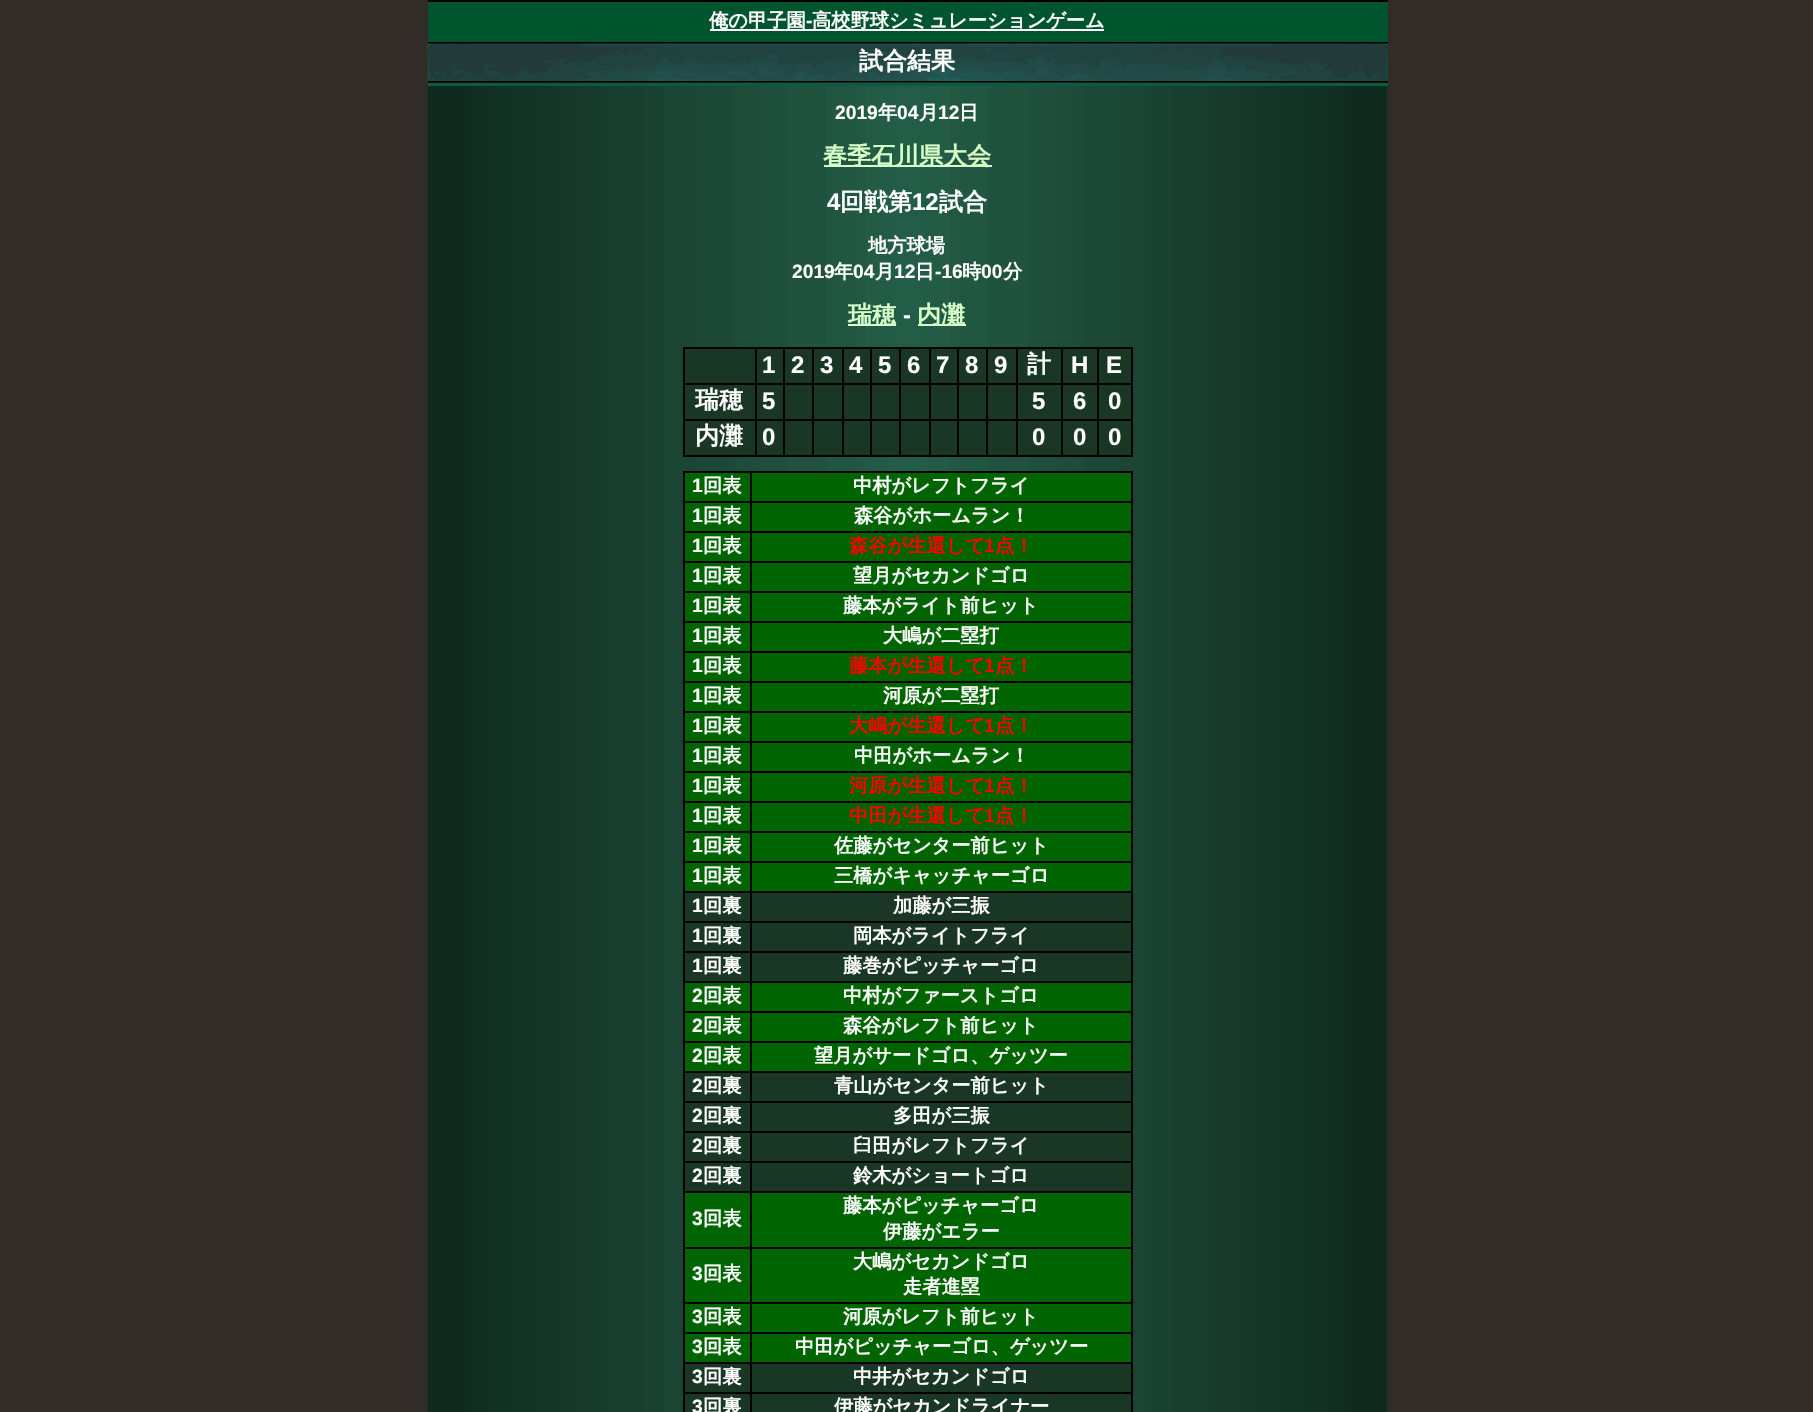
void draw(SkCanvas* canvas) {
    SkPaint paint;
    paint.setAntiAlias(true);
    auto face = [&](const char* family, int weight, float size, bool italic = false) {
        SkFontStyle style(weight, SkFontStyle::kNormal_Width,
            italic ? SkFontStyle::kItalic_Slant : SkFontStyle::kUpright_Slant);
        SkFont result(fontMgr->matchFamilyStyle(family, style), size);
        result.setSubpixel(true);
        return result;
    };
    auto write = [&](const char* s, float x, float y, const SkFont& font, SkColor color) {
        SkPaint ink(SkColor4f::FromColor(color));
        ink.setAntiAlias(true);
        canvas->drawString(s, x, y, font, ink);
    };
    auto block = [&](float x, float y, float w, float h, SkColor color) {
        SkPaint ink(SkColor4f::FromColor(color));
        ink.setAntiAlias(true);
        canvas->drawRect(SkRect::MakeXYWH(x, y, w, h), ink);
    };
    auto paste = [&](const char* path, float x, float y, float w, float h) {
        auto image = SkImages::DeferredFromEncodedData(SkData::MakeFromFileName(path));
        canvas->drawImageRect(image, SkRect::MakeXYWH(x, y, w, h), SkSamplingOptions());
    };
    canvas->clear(SkColorSetRGB(49, 44, 40));
    block(428, 2, 960, 40, SkColorSetRGB(0, 85, 46));
    block(428, 0, 960, 2, SK_ColorBLACK);
    block(428, 42, 960, 2, SK_ColorBLACK);
    block(710, 29, 394, 2, SK_ColorWHITE);
    auto kFont1 = face("WenQuanYi Zen Hei", 700, 19.25f);
    write("俺の甲子園", 709, 27, kFont1, SK_ColorWHITE);
    auto kFont2 = face("Liberation Sans", 700, 19.25f);
    write("-", 806, 27, kFont2, SK_ColorWHITE);
    write("高校野球シミュレーションゲーム", 812, 27, kFont1, SK_ColorWHITE);
    block(1387, 44, 1, 37, SkColorSetRGB(7, 81, 64));
    paste("pic1.png", 427, 43, 961, 40);
    block(428, 81, 960, 2, SK_ColorBLACK);
    auto kFont3 = face("WenQuanYi Zen Hei", 700, 24);
    write("試合結果", 859, 69, kFont3, SK_ColorWHITE);
    block(1387, 86, 1, 1326, SkColorSetRGB(26, 70, 60));
    paste("pic2.png", 427, 82, 961, 1330);
    block(428, 83, 960, 3, SkColorSetRGB(14, 90, 63));
    write("2019", 835, 119, kFont2, SK_ColorWHITE);
    write("年", 878, 119, kFont1, SK_ColorWHITE);
    write("04", 897, 119, kFont2, SK_ColorWHITE);
    write("月", 919, 119, kFont1, SK_ColorWHITE);
    write("12", 938, 119, kFont2, SK_ColorWHITE);
    write("日", 959, 119, kFont1, SK_ColorWHITE);
    block(824, 165, 168, 2, SkColorSetRGB(215, 255, 200));
    write("春季石川県大会", 823, 164, kFont3, SkColorSetRGB(215, 255, 200));
    auto kFont4 = face("Liberation Sans", 700, 24);
    write("4", 827, 210, kFont4, SK_ColorWHITE);
    write("回戦第", 840, 210, kFont3, SK_ColorWHITE);
    write("12", 912, 210, kFont4, SK_ColorWHITE);
    write("試合", 939, 210, kFont3, SK_ColorWHITE);
    write("地方球場", 868, 252, kFont1, SK_ColorWHITE);
    write("2019", 792, 278, kFont2, SK_ColorWHITE);
    write("年", 834, 278, kFont1, SK_ColorWHITE);
    write("04", 853, 278, kFont2, SK_ColorWHITE);
    write("月", 875, 278, kFont1, SK_ColorWHITE);
    write("12", 894, 278, kFont2, SK_ColorWHITE);
    write("日", 915, 278, kFont1, SK_ColorWHITE);
    write("-16", 935, 278, kFont2, SK_ColorWHITE);
    write("時", 962, 278, kFont1, SK_ColorWHITE);
    write("00", 981, 278, kFont2, SK_ColorWHITE);
    write("分", 1003, 278, kFont1, SK_ColorWHITE);
    block(848, 324, 48, 2, SkColorSetRGB(215, 255, 200));
    write("瑞穂", 848, 323, kFont3, SkColorSetRGB(215, 255, 200));
    write("-", 903, 323, kFont4, SK_ColorWHITE);
    block(918, 324, 48, 2, SkColorSetRGB(215, 255, 200));
    write("内灘", 917, 323, kFont3, SkColorSetRGB(215, 255, 200));
    block(685, 349, 446, 106, SkColorSetRGB(26, 55, 37));
    block(1097, 347, 36, 2, SK_ColorBLACK);
    block(1097, 383, 36, 2, SK_ColorBLACK);
    block(1097, 419, 36, 2, SK_ColorBLACK);
    block(1131, 419, 2, 37, SK_ColorBLACK);
    block(1097, 455, 36, 2, SK_ColorBLACK);
    block(1097, 419, 2, 37, SK_ColorBLACK);
    block(1061, 419, 37, 2, SK_ColorBLACK);
    block(1097, 383, 2, 37, SK_ColorBLACK);
    block(1061, 383, 37, 2, SK_ColorBLACK);
    block(1097, 347, 2, 37, SK_ColorBLACK);
    block(1061, 347, 37, 2, SK_ColorBLACK);
    block(1061, 455, 37, 2, SK_ColorBLACK);
    block(1061, 419, 2, 37, SK_ColorBLACK);
    block(1016, 419, 46, 2, SK_ColorBLACK);
    block(1061, 383, 2, 37, SK_ColorBLACK);
    block(1016, 383, 46, 2, SK_ColorBLACK);
    block(1061, 347, 2, 37, SK_ColorBLACK);
    block(1016, 347, 46, 2, SK_ColorBLACK);
    block(1016, 455, 46, 2, SK_ColorBLACK);
    block(1016, 419, 2, 37, SK_ColorBLACK);
    block(986, 419, 31, 2, SK_ColorBLACK);
    block(1016, 383, 2, 37, SK_ColorBLACK);
    block(986, 383, 31, 2, SK_ColorBLACK);
    block(1016, 347, 2, 37, SK_ColorBLACK);
    block(986, 347, 31, 2, SK_ColorBLACK);
    block(986, 455, 31, 2, SK_ColorBLACK);
    block(986, 419, 2, 37, SK_ColorBLACK);
    block(957, 419, 30, 2, SK_ColorBLACK);
    block(986, 383, 2, 37, SK_ColorBLACK);
    block(957, 383, 30, 2, SK_ColorBLACK);
    block(986, 347, 2, 37, SK_ColorBLACK);
    block(957, 347, 30, 2, SK_ColorBLACK);
    block(957, 455, 30, 2, SK_ColorBLACK);
    block(957, 419, 2, 37, SK_ColorBLACK);
    block(929, 419, 30, 2, SK_ColorBLACK);
    block(957, 383, 2, 37, SK_ColorBLACK);
    block(929, 383, 30, 2, SK_ColorBLACK);
    block(957, 347, 2, 37, SK_ColorBLACK);
    block(929, 347, 30, 2, SK_ColorBLACK);
    block(929, 455, 30, 2, SK_ColorBLACK);
    block(929, 419, 2, 37, SK_ColorBLACK);
    block(899, 419, 31, 2, SK_ColorBLACK);
    block(929, 383, 2, 37, SK_ColorBLACK);
    block(899, 383, 31, 2, SK_ColorBLACK);
    block(929, 347, 2, 37, SK_ColorBLACK);
    block(899, 347, 31, 2, SK_ColorBLACK);
    block(899, 455, 31, 2, SK_ColorBLACK);
    block(899, 419, 2, 37, SK_ColorBLACK);
    block(870, 419, 30, 2, SK_ColorBLACK);
    block(899, 383, 2, 37, SK_ColorBLACK);
    block(870, 383, 30, 2, SK_ColorBLACK);
    block(899, 347, 2, 37, SK_ColorBLACK);
    block(870, 347, 30, 2, SK_ColorBLACK);
    block(870, 455, 30, 2, SK_ColorBLACK);
    block(870, 419, 2, 37, SK_ColorBLACK);
    block(842, 419, 30, 2, SK_ColorBLACK);
    block(870, 383, 2, 37, SK_ColorBLACK);
    block(842, 383, 30, 2, SK_ColorBLACK);
    block(870, 347, 2, 37, SK_ColorBLACK);
    block(842, 347, 30, 2, SK_ColorBLACK);
    block(842, 455, 30, 2, SK_ColorBLACK);
    block(842, 419, 2, 37, SK_ColorBLACK);
    block(812, 419, 31, 2, SK_ColorBLACK);
    block(842, 383, 2, 37, SK_ColorBLACK);
    block(812, 383, 31, 2, SK_ColorBLACK);
    block(842, 347, 2, 37, SK_ColorBLACK);
    block(812, 347, 31, 2, SK_ColorBLACK);
    block(812, 455, 31, 2, SK_ColorBLACK);
    block(812, 419, 2, 37, SK_ColorBLACK);
    block(783, 419, 30, 2, SK_ColorBLACK);
    block(812, 383, 2, 37, SK_ColorBLACK);
    block(783, 383, 30, 2, SK_ColorBLACK);
    block(812, 347, 2, 37, SK_ColorBLACK);
    block(783, 347, 30, 2, SK_ColorBLACK);
    block(783, 455, 30, 2, SK_ColorBLACK);
    block(783, 419, 2, 37, SK_ColorBLACK);
    block(755, 419, 30, 2, SK_ColorBLACK);
    block(783, 383, 2, 37, SK_ColorBLACK);
    block(755, 383, 30, 2, SK_ColorBLACK);
    block(783, 347, 2, 37, SK_ColorBLACK);
    block(755, 347, 30, 2, SK_ColorBLACK);
    block(755, 455, 30, 2, SK_ColorBLACK);
    block(755, 419, 2, 37, SK_ColorBLACK);
    block(683, 419, 73, 2, SK_ColorBLACK);
    block(755, 383, 2, 37, SK_ColorBLACK);
    block(683, 383, 73, 2, SK_ColorBLACK);
    block(755, 347, 2, 37, SK_ColorBLACK);
    block(683, 347, 73, 2, SK_ColorBLACK);
    block(683, 455, 73, 2, SK_ColorBLACK);
    block(683, 419, 2, 37, SK_ColorBLACK);
    block(683, 383, 2, 37, SK_ColorBLACK);
    block(683, 347, 2, 37, SK_ColorBLACK);
    write("1", 762, 373, kFont4, SK_ColorWHITE);
    write("2", 791, 373, kFont4, SK_ColorWHITE);
    write("3", 820, 373, kFont4, SK_ColorWHITE);
    write("4", 849, 373, kFont4, SK_ColorWHITE);
    write("5", 878, 373, kFont4, SK_ColorWHITE);
    write("6", 907, 373, kFont4, SK_ColorWHITE);
    write("7", 936, 373, kFont4, SK_ColorWHITE);
    write("8", 965, 373, kFont4, SK_ColorWHITE);
    write("9", 994, 373, kFont4, SK_ColorWHITE);
    write("計", 1027, 372, kFont3, SK_ColorWHITE);
    write("H", 1071, 373, kFont4, SK_ColorWHITE);
    block(1131, 383, 2, 37, SK_ColorBLACK);
    block(1131, 347, 2, 37, SK_ColorBLACK);
    write("E", 1106, 373, kFont4, SK_ColorWHITE);
    write("瑞穂", 695, 408, kFont3, SK_ColorWHITE);
    write("5", 762, 409, kFont4, SK_ColorWHITE);
    write("5", 1032, 409, kFont4, SK_ColorWHITE);
    write("6", 1073, 409, kFont4, SK_ColorWHITE);
    write("0", 1108, 409, kFont4, SK_ColorWHITE);
    write("内灘", 695, 444, kFont3, SK_ColorWHITE);
    write("0", 762, 445, kFont4, SK_ColorWHITE);
    write("0", 1032, 445, kFont4, SK_ColorWHITE);
    write("0", 1073, 445, kFont4, SK_ColorWHITE);
    write("0", 1108, 445, kFont4, SK_ColorWHITE);
    block(685, 893, 446, 519, SkColorSetRGB(26, 55, 37));
    block(685, 473, 446, 28, SkColorSetRGB(0, 100, 0));
    block(750, 471, 383, 2, SK_ColorBLACK);
    block(750, 501, 383, 2, SK_ColorBLACK);
    block(685, 503, 446, 28, SkColorSetRGB(0, 100, 0));
    block(750, 531, 383, 2, SK_ColorBLACK);
    block(685, 533, 446, 28, SkColorSetRGB(0, 100, 0));
    block(750, 561, 383, 2, SK_ColorBLACK);
    block(685, 563, 446, 28, SkColorSetRGB(0, 100, 0));
    block(750, 591, 383, 2, SK_ColorBLACK);
    block(685, 593, 446, 28, SkColorSetRGB(0, 100, 0));
    block(750, 621, 383, 2, SK_ColorBLACK);
    block(685, 623, 446, 28, SkColorSetRGB(0, 100, 0));
    block(750, 651, 383, 2, SK_ColorBLACK);
    block(685, 653, 446, 28, SkColorSetRGB(0, 100, 0));
    block(750, 681, 383, 2, SK_ColorBLACK);
    block(685, 683, 446, 28, SkColorSetRGB(0, 100, 0));
    block(750, 711, 383, 2, SK_ColorBLACK);
    block(685, 713, 446, 28, SkColorSetRGB(0, 100, 0));
    block(750, 741, 383, 2, SK_ColorBLACK);
    block(685, 743, 446, 28, SkColorSetRGB(0, 100, 0));
    block(750, 771, 383, 2, SK_ColorBLACK);
    block(685, 773, 446, 28, SkColorSetRGB(0, 100, 0));
    block(750, 801, 383, 2, SK_ColorBLACK);
    block(685, 803, 446, 28, SkColorSetRGB(0, 100, 0));
    block(750, 831, 383, 2, SK_ColorBLACK);
    block(685, 833, 446, 28, SkColorSetRGB(0, 100, 0));
    block(750, 861, 383, 2, SK_ColorBLACK);
    block(685, 863, 446, 28, SkColorSetRGB(0, 100, 0));
    block(750, 891, 383, 2, SK_ColorBLACK);
    block(750, 921, 383, 2, SK_ColorBLACK);
    block(750, 951, 383, 2, SK_ColorBLACK);
    block(750, 981, 383, 2, SK_ColorBLACK);
    block(685, 983, 446, 28, SkColorSetRGB(0, 100, 0));
    block(750, 1011, 383, 2, SK_ColorBLACK);
    block(685, 1013, 446, 28, SkColorSetRGB(0, 100, 0));
    block(750, 1041, 383, 2, SK_ColorBLACK);
    block(685, 1043, 446, 28, SkColorSetRGB(0, 100, 0));
    block(750, 1071, 383, 2, SK_ColorBLACK);
    block(750, 1101, 383, 2, SK_ColorBLACK);
    block(750, 1131, 383, 2, SK_ColorBLACK);
    block(750, 1161, 383, 2, SK_ColorBLACK);
    block(750, 1191, 383, 2, SK_ColorBLACK);
    block(685, 1193, 446, 54, SkColorSetRGB(0, 100, 0));
    block(750, 1247, 383, 2, SK_ColorBLACK);
    block(685, 1249, 446, 53, SkColorSetRGB(0, 100, 0));
    block(750, 1302, 383, 2, SK_ColorBLACK);
    block(685, 1304, 446, 28, SkColorSetRGB(0, 100, 0));
    block(750, 1332, 383, 2, SK_ColorBLACK);
    block(685, 1334, 446, 28, SkColorSetRGB(0, 100, 0));
    block(750, 1362, 383, 2, SK_ColorBLACK);
    block(750, 1392, 383, 2, SK_ColorBLACK);
    block(750, 1392, 2, 20, SK_ColorBLACK);
    block(683, 1392, 69, 2, SK_ColorBLACK);
    block(750, 1362, 2, 32, SK_ColorBLACK);
    block(683, 1362, 69, 2, SK_ColorBLACK);
    block(750, 1332, 2, 32, SK_ColorBLACK);
    block(683, 1332, 69, 2, SK_ColorBLACK);
    block(750, 1302, 2, 32, SK_ColorBLACK);
    block(683, 1302, 69, 2, SK_ColorBLACK);
    block(750, 1247, 2, 57, SK_ColorBLACK);
    block(683, 1247, 69, 2, SK_ColorBLACK);
    block(750, 1191, 2, 57, SK_ColorBLACK);
    block(683, 1191, 69, 2, SK_ColorBLACK);
    block(750, 1161, 2, 32, SK_ColorBLACK);
    block(683, 1161, 69, 2, SK_ColorBLACK);
    block(750, 1131, 2, 32, SK_ColorBLACK);
    block(683, 1131, 69, 2, SK_ColorBLACK);
    block(750, 1101, 2, 32, SK_ColorBLACK);
    block(683, 1101, 69, 2, SK_ColorBLACK);
    block(750, 1071, 2, 32, SK_ColorBLACK);
    block(683, 1071, 69, 2, SK_ColorBLACK);
    block(750, 1041, 2, 32, SK_ColorBLACK);
    block(683, 1041, 69, 2, SK_ColorBLACK);
    block(750, 1011, 2, 32, SK_ColorBLACK);
    block(683, 1011, 69, 2, SK_ColorBLACK);
    block(750, 981, 2, 32, SK_ColorBLACK);
    block(683, 981, 69, 2, SK_ColorBLACK);
    block(750, 951, 2, 32, SK_ColorBLACK);
    block(683, 951, 69, 2, SK_ColorBLACK);
    block(750, 921, 2, 32, SK_ColorBLACK);
    block(683, 921, 69, 2, SK_ColorBLACK);
    block(750, 891, 2, 32, SK_ColorBLACK);
    block(683, 891, 69, 2, SK_ColorBLACK);
    block(750, 861, 2, 32, SK_ColorBLACK);
    block(683, 861, 69, 2, SK_ColorBLACK);
    block(750, 831, 2, 32, SK_ColorBLACK);
    block(683, 831, 69, 2, SK_ColorBLACK);
    block(750, 801, 2, 32, SK_ColorBLACK);
    block(683, 801, 69, 2, SK_ColorBLACK);
    block(750, 771, 2, 32, SK_ColorBLACK);
    block(683, 771, 69, 2, SK_ColorBLACK);
    block(750, 741, 2, 32, SK_ColorBLACK);
    block(683, 741, 69, 2, SK_ColorBLACK);
    block(750, 711, 2, 32, SK_ColorBLACK);
    block(683, 711, 69, 2, SK_ColorBLACK);
    block(750, 681, 2, 32, SK_ColorBLACK);
    block(683, 681, 69, 2, SK_ColorBLACK);
    block(750, 651, 2, 32, SK_ColorBLACK);
    block(683, 651, 69, 2, SK_ColorBLACK);
    block(750, 621, 2, 32, SK_ColorBLACK);
    block(683, 621, 69, 2, SK_ColorBLACK);
    block(750, 591, 2, 32, SK_ColorBLACK);
    block(683, 591, 69, 2, SK_ColorBLACK);
    block(750, 561, 2, 32, SK_ColorBLACK);
    block(683, 561, 69, 2, SK_ColorBLACK);
    block(750, 531, 2, 32, SK_ColorBLACK);
    block(683, 531, 69, 2, SK_ColorBLACK);
    block(750, 501, 2, 32, SK_ColorBLACK);
    block(683, 501, 69, 2, SK_ColorBLACK);
    block(750, 471, 2, 32, SK_ColorBLACK);
    block(683, 471, 69, 2, SK_ColorBLACK);
    block(683, 1392, 2, 20, SK_ColorBLACK);
    block(683, 1362, 2, 32, SK_ColorBLACK);
    block(683, 1332, 2, 32, SK_ColorBLACK);
    block(683, 1302, 2, 32, SK_ColorBLACK);
    block(683, 1247, 2, 57, SK_ColorBLACK);
    block(683, 1191, 2, 57, SK_ColorBLACK);
    block(683, 1161, 2, 32, SK_ColorBLACK);
    block(683, 1131, 2, 32, SK_ColorBLACK);
    block(683, 1101, 2, 32, SK_ColorBLACK);
    block(683, 1071, 2, 32, SK_ColorBLACK);
    block(683, 1041, 2, 32, SK_ColorBLACK);
    block(683, 1011, 2, 32, SK_ColorBLACK);
    block(683, 981, 2, 32, SK_ColorBLACK);
    block(683, 951, 2, 32, SK_ColorBLACK);
    block(683, 921, 2, 32, SK_ColorBLACK);
    block(683, 891, 2, 32, SK_ColorBLACK);
    block(683, 861, 2, 32, SK_ColorBLACK);
    block(683, 831, 2, 32, SK_ColorBLACK);
    block(683, 801, 2, 32, SK_ColorBLACK);
    block(683, 771, 2, 32, SK_ColorBLACK);
    block(683, 741, 2, 32, SK_ColorBLACK);
    block(683, 711, 2, 32, SK_ColorBLACK);
    block(683, 681, 2, 32, SK_ColorBLACK);
    block(683, 651, 2, 32, SK_ColorBLACK);
    block(683, 621, 2, 32, SK_ColorBLACK);
    block(683, 591, 2, 32, SK_ColorBLACK);
    block(683, 561, 2, 32, SK_ColorBLACK);
    block(683, 531, 2, 32, SK_ColorBLACK);
    block(683, 501, 2, 32, SK_ColorBLACK);
    block(683, 471, 2, 32, SK_ColorBLACK);
    write("1", 692, 492, kFont2, SK_ColorWHITE);
    write("回表", 703, 492, kFont1, SK_ColorWHITE);
    block(1131, 1392, 2, 20, SK_ColorBLACK);
    block(1131, 1362, 2, 32, SK_ColorBLACK);
    block(1131, 1332, 2, 32, SK_ColorBLACK);
    block(1131, 1302, 2, 32, SK_ColorBLACK);
    block(1131, 1247, 2, 57, SK_ColorBLACK);
    block(1131, 1191, 2, 57, SK_ColorBLACK);
    block(1131, 1161, 2, 32, SK_ColorBLACK);
    block(1131, 1131, 2, 32, SK_ColorBLACK);
    block(1131, 1101, 2, 32, SK_ColorBLACK);
    block(1131, 1071, 2, 32, SK_ColorBLACK);
    block(1131, 1041, 2, 32, SK_ColorBLACK);
    block(1131, 1011, 2, 32, SK_ColorBLACK);
    block(1131, 981, 2, 32, SK_ColorBLACK);
    block(1131, 951, 2, 32, SK_ColorBLACK);
    block(1131, 921, 2, 32, SK_ColorBLACK);
    block(1131, 891, 2, 32, SK_ColorBLACK);
    block(1131, 861, 2, 32, SK_ColorBLACK);
    block(1131, 831, 2, 32, SK_ColorBLACK);
    block(1131, 801, 2, 32, SK_ColorBLACK);
    block(1131, 771, 2, 32, SK_ColorBLACK);
    block(1131, 741, 2, 32, SK_ColorBLACK);
    block(1131, 711, 2, 32, SK_ColorBLACK);
    block(1131, 681, 2, 32, SK_ColorBLACK);
    block(1131, 651, 2, 32, SK_ColorBLACK);
    block(1131, 621, 2, 32, SK_ColorBLACK);
    block(1131, 591, 2, 32, SK_ColorBLACK);
    block(1131, 561, 2, 32, SK_ColorBLACK);
    block(1131, 531, 2, 32, SK_ColorBLACK);
    block(1131, 501, 2, 32, SK_ColorBLACK);
    block(1131, 471, 2, 32, SK_ColorBLACK);
    write("中村がレフトフライ", 853, 492, kFont1, SK_ColorWHITE);
    write("1", 692, 522, kFont2, SK_ColorWHITE);
    write("回表", 703, 522, kFont1, SK_ColorWHITE);
    write("森谷がホームラン！", 854, 522, kFont1, SK_ColorWHITE);
    write("1", 692, 552, kFont2, SK_ColorWHITE);
    write("回表", 703, 552, kFont1, SK_ColorWHITE);
    write("森谷が生還して", 849, 552, kFont1, SkColorSetRGB(255, 0, 0));
    write("1", 984, 552, kFont2, SkColorSetRGB(255, 0, 0));
    write("点！", 995, 552, kFont1, SkColorSetRGB(255, 0, 0));
    write("1", 692, 582, kFont2, SK_ColorWHITE);
    write("回表", 703, 582, kFont1, SK_ColorWHITE);
    write("望月がセカンドゴロ", 853, 582, kFont1, SK_ColorWHITE);
    write("1", 692, 612, kFont2, SK_ColorWHITE);
    write("回表", 703, 612, kFont1, SK_ColorWHITE);
    write("藤本がライト前ヒット", 843, 612, kFont1, SK_ColorWHITE);
    write("1", 692, 642, kFont2, SK_ColorWHITE);
    write("回表", 703, 642, kFont1, SK_ColorWHITE);
    write("大嶋が二塁打", 883, 642, kFont1, SK_ColorWHITE);
    write("1", 692, 672, kFont2, SK_ColorWHITE);
    write("回表", 703, 672, kFont1, SK_ColorWHITE);
    write("藤本が生還して", 849, 672, kFont1, SkColorSetRGB(255, 0, 0));
    write("1", 984, 672, kFont2, SkColorSetRGB(255, 0, 0));
    write("点！", 995, 672, kFont1, SkColorSetRGB(255, 0, 0));
    write("1", 692, 702, kFont2, SK_ColorWHITE);
    write("回表", 703, 702, kFont1, SK_ColorWHITE);
    write("河原が二塁打", 883, 702, kFont1, SK_ColorWHITE);
    write("1", 692, 732, kFont2, SK_ColorWHITE);
    write("回表", 703, 732, kFont1, SK_ColorWHITE);
    write("大嶋が生還して", 849, 732, kFont1, SkColorSetRGB(255, 0, 0));
    write("1", 984, 732, kFont2, SkColorSetRGB(255, 0, 0));
    write("点！", 995, 732, kFont1, SkColorSetRGB(255, 0, 0));
    write("1", 692, 762, kFont2, SK_ColorWHITE);
    write("回表", 703, 762, kFont1, SK_ColorWHITE);
    write("中田がホームラン！", 854, 762, kFont1, SK_ColorWHITE);
    write("1", 692, 792, kFont2, SK_ColorWHITE);
    write("回表", 703, 792, kFont1, SK_ColorWHITE);
    write("河原が生還して", 849, 792, kFont1, SkColorSetRGB(255, 0, 0));
    write("1", 984, 792, kFont2, SkColorSetRGB(255, 0, 0));
    write("点！", 995, 792, kFont1, SkColorSetRGB(255, 0, 0));
    write("1", 692, 822, kFont2, SK_ColorWHITE);
    write("回表", 703, 822, kFont1, SK_ColorWHITE);
    write("中田が生還して", 849, 822, kFont1, SkColorSetRGB(255, 0, 0));
    write("1", 984, 822, kFont2, SkColorSetRGB(255, 0, 0));
    write("点！", 995, 822, kFont1, SkColorSetRGB(255, 0, 0));
    write("1", 692, 852, kFont2, SK_ColorWHITE);
    write("回表", 703, 852, kFont1, SK_ColorWHITE);
    write("佐藤がセンター前ヒット", 834, 852, kFont1, SK_ColorWHITE);
    write("1", 692, 882, kFont2, SK_ColorWHITE);
    write("回表", 703, 882, kFont1, SK_ColorWHITE);
    write("三橋がキャッチャーゴロ", 834, 882, kFont1, SK_ColorWHITE);
    write("1", 692, 912, kFont2, SK_ColorWHITE);
    write("回裏", 703, 912, kFont1, SK_ColorWHITE);
    write("加藤が三振", 893, 912, kFont1, SK_ColorWHITE);
    write("1", 692, 942, kFont2, SK_ColorWHITE);
    write("回裏", 703, 942, kFont1, SK_ColorWHITE);
    write("岡本がライトフライ", 853, 942, kFont1, SK_ColorWHITE);
    write("1", 692, 972, kFont2, SK_ColorWHITE);
    write("回裏", 703, 972, kFont1, SK_ColorWHITE);
    write("藤巻がピッチャーゴロ", 843, 972, kFont1, SK_ColorWHITE);
    write("2", 692, 1002, kFont2, SK_ColorWHITE);
    write("回表", 703, 1002, kFont1, SK_ColorWHITE);
    write("中村がファーストゴロ", 843, 1002, kFont1, SK_ColorWHITE);
    write("2", 692, 1032, kFont2, SK_ColorWHITE);
    write("回表", 703, 1032, kFont1, SK_ColorWHITE);
    write("森谷がレフト前ヒット", 843, 1032, kFont1, SK_ColorWHITE);
    write("2", 692, 1062, kFont2, SK_ColorWHITE);
    write("回表", 703, 1062, kFont1, SK_ColorWHITE);
    write("望月がサードゴロ、ゲッツー", 814, 1062, kFont1, SK_ColorWHITE);
    write("2", 692, 1092, kFont2, SK_ColorWHITE);
    write("回裏", 703, 1092, kFont1, SK_ColorWHITE);
    write("青山がセンター前ヒット", 834, 1092, kFont1, SK_ColorWHITE);
    write("2", 692, 1122, kFont2, SK_ColorWHITE);
    write("回裏", 703, 1122, kFont1, SK_ColorWHITE);
    write("多田が三振", 893, 1122, kFont1, SK_ColorWHITE);
    write("2", 692, 1152, kFont2, SK_ColorWHITE);
    write("回裏", 703, 1152, kFont1, SK_ColorWHITE);
    write("臼田がレフトフライ", 853, 1152, kFont1, SK_ColorWHITE);
    write("2", 692, 1182, kFont2, SK_ColorWHITE);
    write("回裏", 703, 1182, kFont1, SK_ColorWHITE);
    write("鈴木がショートゴロ", 853, 1182, kFont1, SK_ColorWHITE);
    write("3", 692, 1225, kFont2, SK_ColorWHITE);
    write("回表", 703, 1225, kFont1, SK_ColorWHITE);
    write("藤本がピッチャーゴロ", 843, 1212, kFont1, SK_ColorWHITE);
    write("伊藤がエラー", 883, 1238, kFont1, SK_ColorWHITE);
    write("3", 692, 1280, kFont2, SK_ColorWHITE);
    write("回表", 703, 1280, kFont1, SK_ColorWHITE);
    write("大嶋がセカンドゴロ", 853, 1268, kFont1, SK_ColorWHITE);
    write("走者進塁", 903, 1293, kFont1, SK_ColorWHITE);
    write("3", 692, 1323, kFont2, SK_ColorWHITE);
    write("回表", 703, 1323, kFont1, SK_ColorWHITE);
    write("河原がレフト前ヒット", 843, 1323, kFont1, SK_ColorWHITE);
    write("3", 692, 1353, kFont2, SK_ColorWHITE);
    write("回表", 703, 1353, kFont1, SK_ColorWHITE);
    write("中田がピッチャーゴロ、ゲッツー", 795, 1353, kFont1, SK_ColorWHITE);
    write("3", 692, 1383, kFont2, SK_ColorWHITE);
    write("回裏", 703, 1383, kFont1, SK_ColorWHITE);
    write("中井がセカンドゴロ", 853, 1383, kFont1, SK_ColorWHITE);
    write("3", 692, 1413, kFont2, SK_ColorWHITE);
    write("回裏", 703, 1413, kFont1, SK_ColorWHITE);
    write("伊藤がセカンドライナー", 834, 1413, kFont1, SK_ColorWHITE);
}
